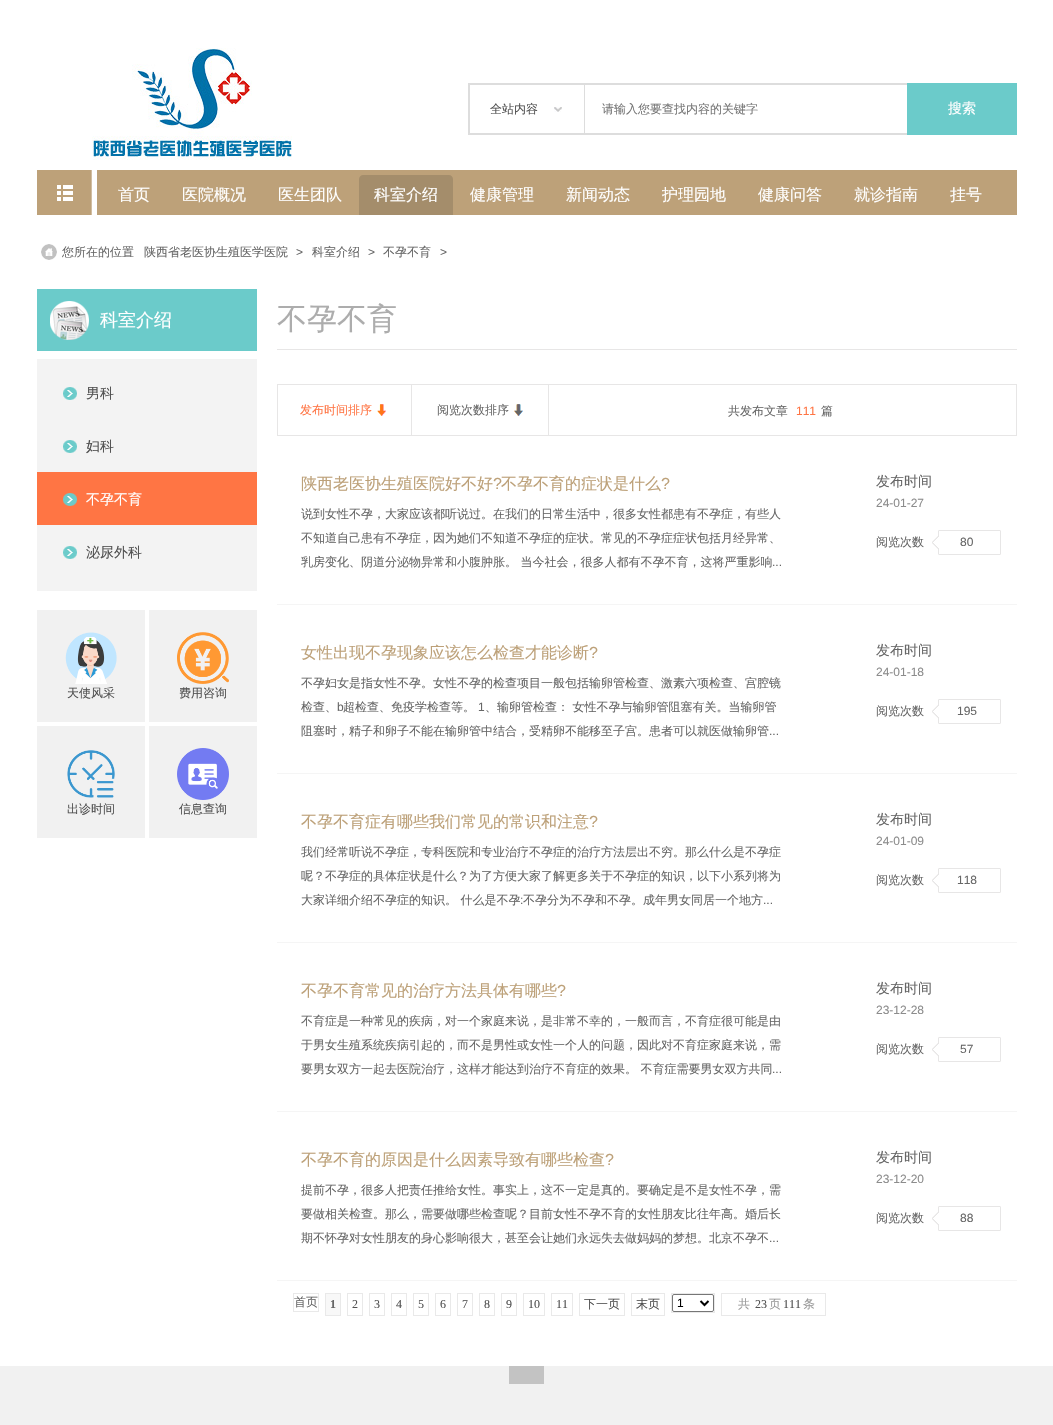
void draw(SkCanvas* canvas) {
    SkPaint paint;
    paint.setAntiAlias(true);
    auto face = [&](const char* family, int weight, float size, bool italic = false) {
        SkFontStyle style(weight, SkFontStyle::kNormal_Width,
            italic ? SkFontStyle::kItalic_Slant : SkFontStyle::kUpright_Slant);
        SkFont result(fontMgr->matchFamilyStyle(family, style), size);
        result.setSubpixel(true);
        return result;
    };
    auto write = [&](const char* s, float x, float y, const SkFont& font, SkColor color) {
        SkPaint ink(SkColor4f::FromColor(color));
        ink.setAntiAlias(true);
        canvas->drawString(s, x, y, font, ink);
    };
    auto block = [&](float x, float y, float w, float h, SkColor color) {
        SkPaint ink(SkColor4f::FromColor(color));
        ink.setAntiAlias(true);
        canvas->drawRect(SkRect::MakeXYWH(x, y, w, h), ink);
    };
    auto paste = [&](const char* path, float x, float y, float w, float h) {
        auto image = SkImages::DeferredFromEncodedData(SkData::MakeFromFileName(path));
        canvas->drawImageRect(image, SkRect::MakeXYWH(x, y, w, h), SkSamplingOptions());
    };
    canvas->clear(SK_ColorWHITE);
    paste("pic1.png", 92, 48, 200, 112);
    paint.setStyle(SkPaint::kStroke_Style);
    paint.setStrokeWidth(2);
    paint.setColor(SkColorSetRGB(221, 221, 221));
    canvas->drawRect(SkRect::MakeXYWH(469, 84, 547, 50), paint);
    block(584, 85, 1, 48, SkColorSetRGB(221, 221, 221));
    paste("pic2.png", 554, 107, 8, 5);
    auto kFont1 = face("WenQuanYi Zen Hei", 500, 12);
    write("全站内容", 490, 113, kFont1, SkColorSetRGB(80, 80, 80));
    write("请输入您要查找内容的关键字", 602, 113, kFont1, SkColorSetRGB(117, 117, 117));
    block(907, 83, 110, 52, SkColorSetRGB(107, 203, 202));
    auto kFont2 = face("WenQuanYi Zen Hei", 500, 14);
    write("搜索", 948, 113, kFont2, SK_ColorWHITE);
    block(37, 170, 54, 45, SkColorSetRGB(189, 161, 121));
    block(91, 170, 1, 45, SkColorSetRGB(209, 189, 161));
    paste("pic3.png", 57, 185, 16, 16);
    block(97, 170, 920, 45, SkColorSetRGB(189, 161, 121));
    auto kFont3 = face("WenQuanYi Zen Hei", 500, 16);
    write("首页", 118, 200, kFont3, SK_ColorWHITE);
    write("医院概况", 182, 200, kFont3, SK_ColorWHITE);
    write("医生团队", 278, 200, kFont3, SK_ColorWHITE);
    paint.setStyle(SkPaint::kFill_Style);
    paint.setColor(SkColorSetRGB(164, 141, 107));
    canvas->drawPath(SkPathBuilder().moveTo(363, 175).lineTo(449, 175).cubicTo(451, 175, 453, 177, 453, 179).lineTo(453, 215).lineTo(359, 215).lineTo(359, 179).cubicTo(359, 177, 361, 175, 363, 175).close().detach(), paint);
    write("科室介绍", 374, 200, kFont3, SK_ColorWHITE);
    write("健康管理", 470, 200, kFont3, SK_ColorWHITE);
    write("新闻动态", 566, 200, kFont3, SK_ColorWHITE);
    write("护理园地", 662, 200, kFont3, SK_ColorWHITE);
    write("健康问答", 758, 200, kFont3, SK_ColorWHITE);
    write("就诊指南", 854, 200, kFont3, SK_ColorWHITE);
    write("挂号", 950, 200, kFont3, SK_ColorWHITE);
    paste("pic4.png", 41, 244, 16, 16);
    write("您所在的位置", 62, 256, kFont1, SkColorSetRGB(102, 102, 102));
    write("陕西省老医协生殖医学医院", 144, 256, kFont1, SkColorSetRGB(102, 102, 102));
    auto kFont4 = face("Liberation Sans", 400, 12);
    write(">", 296, 256, kFont4, SkColorSetRGB(102, 102, 102));
    write("科室介绍", 312, 256, kFont1, SkColorSetRGB(102, 102, 102));
    write(">", 368, 256, kFont4, SkColorSetRGB(102, 102, 102));
    write("不孕不育", 383, 256, kFont1, SkColorSetRGB(102, 102, 102));
    write(">", 440, 256, kFont4, SkColorSetRGB(102, 102, 102));
    block(37, 289, 220, 62, SkColorSetRGB(107, 203, 202));
    paste("pic5.png", 50, 301, 39, 39);
    auto kFont5 = face("WenQuanYi Zen Hei", 500, 18);
    write("科室介绍", 100, 326, kFont5, SK_ColorWHITE);
    block(37, 359, 220, 232, SkColorSetRGB(243, 243, 243));
    paste("pic6.png", 63, 387, 14, 13);
    write("男科", 86, 398, kFont2, SkColorSetRGB(80, 80, 80));
    paste("pic6.png", 63, 440, 14, 13);
    write("妇科", 86, 451, kFont2, SkColorSetRGB(80, 80, 80));
    block(37, 472, 220, 53, SkColorSetRGB(255, 117, 68));
    paste("pic7.png", 63, 493, 14, 13);
    write("不孕不育", 86, 504, kFont2, SK_ColorWHITE);
    paste("pic6.png", 63, 546, 14, 13);
    write("泌尿外科", 86, 557, kFont2, SkColorSetRGB(80, 80, 80));
    block(37, 610, 108, 112, SkColorSetRGB(241, 241, 241));
    paste("pic8.png", 65, 632, 52, 52);
    write("天使风采", 67, 697, kFont1, SkColorSetRGB(80, 80, 80));
    block(149, 610, 108, 112, SkColorSetRGB(241, 241, 241));
    paste("pic9.png", 177, 632, 52, 52);
    write("费用咨询", 179, 697, kFont1, SkColorSetRGB(80, 80, 80));
    block(37, 726, 108, 112, SkColorSetRGB(241, 241, 241));
    paste("pic10.png", 67, 750, 48, 48);
    write("出诊时间", 67, 813, kFont1, SkColorSetRGB(80, 80, 80));
    block(149, 726, 108, 112, SkColorSetRGB(241, 241, 241));
    paste("pic11.png", 177, 748, 52, 52);
    write("信息查询", 179, 813, kFont1, SkColorSetRGB(80, 80, 80));
    block(277, 349, 740, 1, SkColorSetRGB(231, 230, 230));
    auto kFont6 = face("WenQuanYi Zen Hei", 500, 30);
    write("不孕不育", 277, 329, kFont6, SkColorSetRGB(173, 173, 173));
    paint.setStyle(SkPaint::kStroke_Style);
    paint.setStrokeWidth(1);
    paint.setColor(SkColorSetRGB(231, 230, 230));
    canvas->drawRect(SkRect::MakeXYWH(277.5f, 384.5f, 739, 51), paint);
    paste("pic12.png", 377, 404, 9, 12);
    block(411, 385, 1, 50, SkColorSetRGB(231, 230, 230));
    write("发布时间排序", 300, 414, kFont1, SkColorSetRGB(255, 117, 68));
    paste("pic13.png", 514, 404, 9, 12);
    block(548, 385, 1, 50, SkColorSetRGB(231, 230, 230));
    write("阅览次数排序", 437, 414, kFont1, SkColorSetRGB(102, 102, 102));
    write("共发布文章", 728, 415, kFont1, SkColorSetRGB(102, 102, 102));
    write("111", 796, 415, kFont4, SkColorSetRGB(255, 117, 68));
    write("篇", 821, 415, kFont1, SkColorSetRGB(102, 102, 102));
    block(277, 604, 740, 1, SkColorSetRGB(245, 245, 245));
    write("陕西老医协生殖医院好不好", 301, 489, kFont3, SkColorSetRGB(189, 161, 121));
    auto kFont7 = face("Liberation Sans", 400, 16);
    write("?", 493, 489, kFont7, SkColorSetRGB(189, 161, 121));
    write("不孕不育的症状是什么", 501, 489, kFont3, SkColorSetRGB(189, 161, 121));
    write("?", 661, 489, kFont7, SkColorSetRGB(189, 161, 121));
    write("说到女性不孕，大家应该都听说过。在我们的日常生活中，很多女性都患有不孕症，有些人", 301, 518, kFont1, SkColorSetRGB(102, 102, 102));
    write("不知道自己患有不孕症，因为她们不知道不孕症的症状。常见的不孕症症状包括月经异常、", 301, 542, kFont1, SkColorSetRGB(102, 102, 102));
    write("乳房变化、阴道分泌物异常和小腹肿胀。 当今社会，很多人都有不孕不育，这将严重影响", 301, 566, kFont1, SkColorSetRGB(102, 102, 102));
    write("...", 772, 566, kFont4, SkColorSetRGB(102, 102, 102));
    write("发布时间", 876, 486, kFont2, SkColorSetRGB(102, 102, 102));
    write("24-01-27", 876, 507, kFont4, SkColorSetRGB(140, 140, 140));
    write("阅览次数", 876, 546, kFont1, SkColorSetRGB(102, 102, 102));
    paste("pic14.png", 932, 530, 69, 25);
    write("80", 960, 546, kFont4, SkColorSetRGB(102, 102, 102));
    block(277, 773, 740, 1, SkColorSetRGB(245, 245, 245));
    write("女性出现不孕现象应该怎么检查才能诊断", 301, 658, kFont3, SkColorSetRGB(189, 161, 121));
    write("?", 589, 658, kFont7, SkColorSetRGB(189, 161, 121));
    write("不孕妇女是指女性不孕。女性不孕的检查项目一般包括输卵管检查、激素六项检查、宫腔镜", 301, 687, kFont1, SkColorSetRGB(102, 102, 102));
    write("检查、", 301, 711, kFont1, SkColorSetRGB(102, 102, 102));
    write("b", 337, 711, kFont4, SkColorSetRGB(102, 102, 102));
    write("超检查、免疫学检查等。", 343, 711, kFont1, SkColorSetRGB(102, 102, 102));
    write("1", 478, 711, kFont4, SkColorSetRGB(102, 102, 102));
    write("、输卵管检查： 女性不孕与输卵管阻塞有关。当输卵管", 485, 711, kFont1, SkColorSetRGB(102, 102, 102));
    write("阻塞时，精子和卵子不能在输卵管中结合，受精卵不能移至子宫。患者可以就医做输卵管", 301, 735, kFont1, SkColorSetRGB(102, 102, 102));
    write("...", 769, 735, kFont4, SkColorSetRGB(102, 102, 102));
    write("发布时间", 876, 655, kFont2, SkColorSetRGB(102, 102, 102));
    write("24-01-18", 876, 676, kFont4, SkColorSetRGB(140, 140, 140));
    write("阅览次数", 876, 715, kFont1, SkColorSetRGB(102, 102, 102));
    paste("pic14.png", 932, 699, 69, 25);
    write("195", 957, 715, kFont4, SkColorSetRGB(102, 102, 102));
    block(277, 942, 740, 1, SkColorSetRGB(245, 245, 245));
    write("不孕不育症有哪些我们常见的常识和注意", 301, 827, kFont3, SkColorSetRGB(189, 161, 121));
    write("?", 589, 827, kFont7, SkColorSetRGB(189, 161, 121));
    write("我们经常听说不孕症，专科医院和专业治疗不孕症的治疗方法层出不穷。那么什么是不孕症", 301, 856, kFont1, SkColorSetRGB(102, 102, 102));
    write("呢？不孕症的具体症状是什么？为了方便大家了解更多关于不孕症的知识，以下小系列将为", 301, 880, kFont1, SkColorSetRGB(102, 102, 102));
    write("大家详细介绍不孕症的知识。 什么是不孕", 301, 904, kFont1, SkColorSetRGB(102, 102, 102));
    write(":", 520, 904, kFont4, SkColorSetRGB(102, 102, 102));
    write("不孕分为不孕和不孕。成年男女同居一个地方", 523, 904, kFont1, SkColorSetRGB(102, 102, 102));
    write("...", 763, 904, kFont4, SkColorSetRGB(102, 102, 102));
    write("发布时间", 876, 824, kFont2, SkColorSetRGB(102, 102, 102));
    write("24-01-09", 876, 845, kFont4, SkColorSetRGB(140, 140, 140));
    write("阅览次数", 876, 884, kFont1, SkColorSetRGB(102, 102, 102));
    paste("pic14.png", 932, 868, 69, 25);
    write("118", 957, 884, kFont4, SkColorSetRGB(102, 102, 102));
    block(277, 1111, 740, 1, SkColorSetRGB(245, 245, 245));
    write("不孕不育常见的治疗方法具体有哪些", 301, 996, kFont3, SkColorSetRGB(189, 161, 121));
    write("?", 557, 996, kFont7, SkColorSetRGB(189, 161, 121));
    write("不育症是一种常见的疾病，对一个家庭来说，是非常不幸的，一般而言，不育症很可能是由", 301, 1025, kFont1, SkColorSetRGB(102, 102, 102));
    write("于男女生殖系统疾病引起的，而不是男性或女性一个人的问题，因此对不育症家庭来说，需", 301, 1049, kFont1, SkColorSetRGB(102, 102, 102));
    write("要男女双方一起去医院治疗，这样才能达到治疗不育症的效果。 不育症需要男女双方共同", 301, 1073, kFont1, SkColorSetRGB(102, 102, 102));
    write("...", 772, 1073, kFont4, SkColorSetRGB(102, 102, 102));
    write("发布时间", 876, 993, kFont2, SkColorSetRGB(102, 102, 102));
    write("23-12-28", 876, 1014, kFont4, SkColorSetRGB(140, 140, 140));
    write("阅览次数", 876, 1053, kFont1, SkColorSetRGB(102, 102, 102));
    paste("pic14.png", 932, 1037, 69, 25);
    write("57", 960, 1053, kFont4, SkColorSetRGB(102, 102, 102));
    block(277, 1280, 740, 1, SkColorSetRGB(245, 245, 245));
    write("不孕不育的原因是什么因素导致有哪些检查", 301, 1165, kFont3, SkColorSetRGB(189, 161, 121));
    write("?", 605, 1165, kFont7, SkColorSetRGB(189, 161, 121));
    write("提前不孕，很多人把责任推给女性。事实上，这不一定是真的。要确定是不是女性不孕，需", 301, 1194, kFont1, SkColorSetRGB(102, 102, 102));
    write("要做相关检查。那么，需要做哪些检查呢？目前女性不孕不育的女性朋友比往年高。婚后长", 301, 1218, kFont1, SkColorSetRGB(102, 102, 102));
    write("期不怀孕对女性朋友的身心影响很大，甚至会让她们永远失去做妈妈的梦想。北京不孕不", 301, 1242, kFont1, SkColorSetRGB(102, 102, 102));
    write("...", 769, 1242, kFont4, SkColorSetRGB(102, 102, 102));
    write("发布时间", 876, 1162, kFont2, SkColorSetRGB(102, 102, 102));
    write("23-12-20", 876, 1183, kFont4, SkColorSetRGB(140, 140, 140));
    write("阅览次数", 876, 1222, kFont1, SkColorSetRGB(102, 102, 102));
    paste("pic14.png", 932, 1206, 69, 25);
    write("88", 960, 1222, kFont4, SkColorSetRGB(102, 102, 102));
    paint.setColor(SkColorSetRGB(233, 233, 233));
    canvas->drawRect(SkRect::MakeXYWH(293.5f, 1293.5f, 25, 18), paint);
    write("首页", 294, 1306, kFont1, SkColorSetRGB(102, 102, 102));
    paint.setStyle(SkPaint::kFill_Style);
    paint.setColor(SkColorSetRGB(248, 248, 248));
    canvas->drawRect(SkRect::MakeXYWH(325.5f, 1293.5f, 15, 22), paint);
    paint.setStyle(SkPaint::kStroke_Style);
    paint.setColor(SkColorSetRGB(233, 233, 233));
    canvas->drawRect(SkRect::MakeXYWH(325.5f, 1293.5f, 15, 22), paint);
    auto kFont8 = face("Liberation Serif", 700, 12);
    write("1", 330, 1308, kFont8, SkColorSetRGB(102, 102, 102));
    canvas->drawRect(SkRect::MakeXYWH(347.5f, 1293.5f, 15, 22), paint);
    auto kFont9 = face("Liberation Serif", 400, 12);
    write("2", 352, 1308, kFont9, SkColorSetRGB(80, 80, 80));
    canvas->drawRect(SkRect::MakeXYWH(369.5f, 1293.5f, 15, 22), paint);
    write("3", 374, 1308, kFont9, SkColorSetRGB(80, 80, 80));
    canvas->drawRect(SkRect::MakeXYWH(391.5f, 1293.5f, 15, 22), paint);
    write("4", 396, 1308, kFont9, SkColorSetRGB(80, 80, 80));
    canvas->drawRect(SkRect::MakeXYWH(413.5f, 1293.5f, 15, 22), paint);
    write("5", 418, 1308, kFont9, SkColorSetRGB(80, 80, 80));
    canvas->drawRect(SkRect::MakeXYWH(435.5f, 1293.5f, 15, 22), paint);
    write("6", 440, 1308, kFont9, SkColorSetRGB(80, 80, 80));
    canvas->drawRect(SkRect::MakeXYWH(457.5f, 1293.5f, 15, 22), paint);
    write("7", 462, 1308, kFont9, SkColorSetRGB(80, 80, 80));
    canvas->drawRect(SkRect::MakeXYWH(479.5f, 1293.5f, 15, 22), paint);
    write("8", 484, 1308, kFont9, SkColorSetRGB(80, 80, 80));
    canvas->drawRect(SkRect::MakeXYWH(501.5f, 1293.5f, 15, 22), paint);
    write("9", 506, 1308, kFont9, SkColorSetRGB(80, 80, 80));
    canvas->drawRect(SkRect::MakeXYWH(523.5f, 1293.5f, 21, 22), paint);
    write("10", 528, 1308, kFont9, SkColorSetRGB(80, 80, 80));
    canvas->drawRect(SkRect::MakeXYWH(551.5f, 1293.5f, 21, 22), paint);
    write("11", 556, 1308, kFont9, SkColorSetRGB(80, 80, 80));
    canvas->drawRect(SkRect::MakeXYWH(579.5f, 1293.5f, 45, 22), paint);
    write("下一页", 584, 1308, kFont1, SkColorSetRGB(80, 80, 80));
    canvas->drawRect(SkRect::MakeXYWH(631.5f, 1293.5f, 33, 22), paint);
    write("末页", 636, 1308, kFont1, SkColorSetRGB(80, 80, 80));
    canvas->drawRect(SkRect::MakeXYWH(671.5f, 1293.5f, 43, 19), paint);
    paint.setColor(SkColorSetRGB(118, 118, 118));
    canvas->drawRoundRect(SkRect::MakeXYWH(672.5f, 1294.5f, 41, 17), 1.5f, 1.5f, paint);
    paint.setStrokeWidth(2);
    paint.setColor(SK_ColorBLACK);
    canvas->drawPath(SkPathBuilder().moveTo(700.5f, 1301).lineTo(704.5f, 1305).lineTo(708.5f, 1301).detach(), paint);
    write("1", 677, 1307, kFont4, SK_ColorBLACK);
    paint.setStrokeWidth(1);
    paint.setColor(SkColorSetRGB(233, 233, 233));
    canvas->drawRect(SkRect::MakeXYWH(721.5f, 1293.5f, 104, 22), paint);
    write("共", 738, 1308, kFont1, SkColorSetRGB(153, 153, 153));
    write("23", 755, 1308, kFont9, SkColorSetRGB(80, 80, 80));
    write("页", 769, 1308, kFont1, SkColorSetRGB(153, 153, 153));
    write("111", 783, 1308, kFont9, SkColorSetRGB(80, 80, 80));
    write("条", 803, 1308, kFont1, SkColorSetRGB(153, 153, 153));
    block(0, 1366, 1053, 59, SkColorSetRGB(241, 241, 241));
    block(509, 1366, 35, 18, SkColorSetRGB(195, 195, 195));
}
